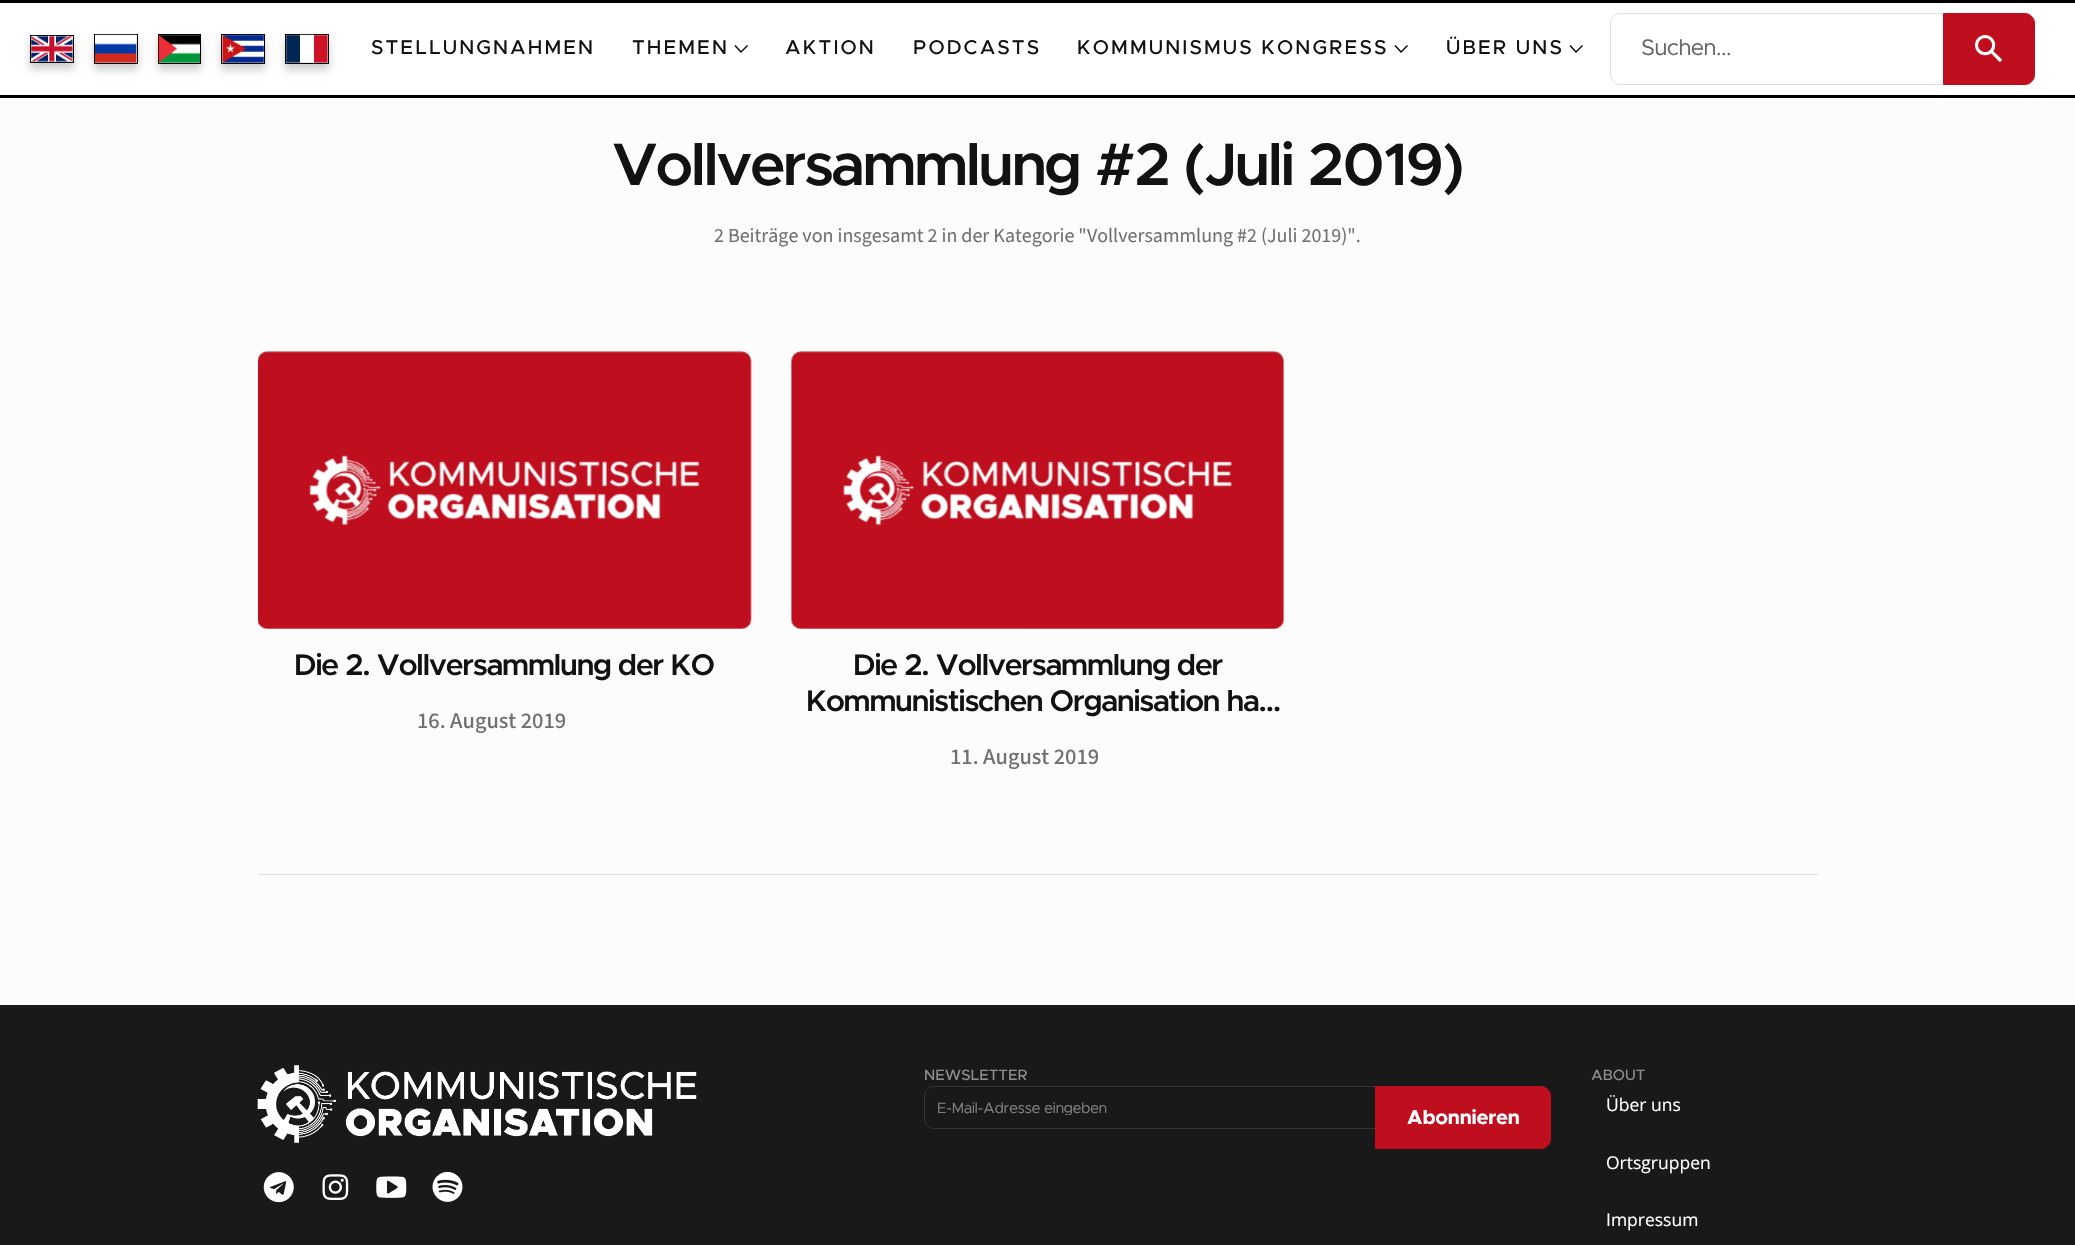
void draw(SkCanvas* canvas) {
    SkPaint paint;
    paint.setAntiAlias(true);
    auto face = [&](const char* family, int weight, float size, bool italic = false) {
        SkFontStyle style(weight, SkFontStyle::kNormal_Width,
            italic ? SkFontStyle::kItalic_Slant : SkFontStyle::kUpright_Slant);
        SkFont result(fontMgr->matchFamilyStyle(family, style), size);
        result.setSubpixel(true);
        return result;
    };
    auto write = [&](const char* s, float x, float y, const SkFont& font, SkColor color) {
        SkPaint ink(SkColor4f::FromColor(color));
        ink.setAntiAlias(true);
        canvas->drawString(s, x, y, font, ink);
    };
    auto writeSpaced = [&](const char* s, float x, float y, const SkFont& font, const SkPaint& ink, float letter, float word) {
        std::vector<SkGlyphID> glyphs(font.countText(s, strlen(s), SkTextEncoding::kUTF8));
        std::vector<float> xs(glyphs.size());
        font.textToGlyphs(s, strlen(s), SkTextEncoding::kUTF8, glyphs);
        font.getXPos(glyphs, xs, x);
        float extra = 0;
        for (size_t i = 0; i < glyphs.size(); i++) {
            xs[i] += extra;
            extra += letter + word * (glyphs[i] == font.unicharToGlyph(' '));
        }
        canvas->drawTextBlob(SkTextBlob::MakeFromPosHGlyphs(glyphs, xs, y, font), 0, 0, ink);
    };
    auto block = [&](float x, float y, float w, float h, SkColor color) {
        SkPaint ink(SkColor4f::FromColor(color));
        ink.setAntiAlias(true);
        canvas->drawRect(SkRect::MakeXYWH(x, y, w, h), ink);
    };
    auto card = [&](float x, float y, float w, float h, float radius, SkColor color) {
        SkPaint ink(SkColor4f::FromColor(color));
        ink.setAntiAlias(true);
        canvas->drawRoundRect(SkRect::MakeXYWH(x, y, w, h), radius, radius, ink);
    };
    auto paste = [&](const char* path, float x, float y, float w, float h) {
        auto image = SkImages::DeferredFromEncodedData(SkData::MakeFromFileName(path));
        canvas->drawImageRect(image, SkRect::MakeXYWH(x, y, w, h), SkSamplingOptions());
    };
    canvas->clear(SkColorSetRGB(253, 252, 252));
    block(0, 3, 2075, 92, SK_ColorWHITE);
    block(0, 0, 2075, 3, SK_ColorBLACK);
    block(0, 95, 2075, 3, SK_ColorBLACK);
    paint.setColor(SkColorSetARGB(51, 0, 0, 0));
    paint.setMaskFilter(SkMaskFilter::MakeBlur(kNormal_SkBlurStyle, 4));
    canvas->drawRect(SkRect::MakeXYWH(30, 41, 44, 28), paint);
    paint.setMaskFilter(nullptr);
    paint.setStyle(SkPaint::kStroke_Style);
    paint.setStrokeWidth(1);
    paint.setColor(SK_ColorBLACK);
    canvas->drawRect(SkRect::MakeXYWH(30.5f, 35.5f, 43, 27), paint);
    paste("pic1.png", 31, 35, 42, 27);
    paint.setStyle(SkPaint::kFill_Style);
    paint.setColor(SkColorSetARGB(51, 0, 0, 0));
    paint.setMaskFilter(SkMaskFilter::MakeBlur(kNormal_SkBlurStyle, 4));
    canvas->drawRect(SkRect::MakeXYWH(94, 40, 44, 30), paint);
    paint.setMaskFilter(nullptr);
    paint.setStyle(SkPaint::kStroke_Style);
    paint.setColor(SK_ColorBLACK);
    canvas->drawRect(SkRect::MakeXYWH(94.5f, 34.5f, 43, 29), paint);
    paste("pic2.png", 95, 34, 42, 29);
    paint.setStyle(SkPaint::kFill_Style);
    paint.setColor(SkColorSetARGB(51, 0, 0, 0));
    paint.setMaskFilter(SkMaskFilter::MakeBlur(kNormal_SkBlurStyle, 4));
    canvas->drawRect(SkRect::MakeXYWH(158, 40, 43, 30), paint);
    paint.setMaskFilter(nullptr);
    paint.setStyle(SkPaint::kStroke_Style);
    paint.setColor(SK_ColorBLACK);
    canvas->drawRect(SkRect::MakeXYWH(158.5f, 34.5f, 42, 29), paint);
    paste("pic3.png", 158, 34, 42, 29);
    paint.setStyle(SkPaint::kFill_Style);
    paint.setColor(SkColorSetARGB(51, 0, 0, 0));
    paint.setMaskFilter(SkMaskFilter::MakeBlur(kNormal_SkBlurStyle, 4));
    canvas->drawRect(SkRect::MakeXYWH(221, 40, 44, 30), paint);
    paint.setMaskFilter(nullptr);
    paint.setStyle(SkPaint::kStroke_Style);
    paint.setColor(SK_ColorBLACK);
    canvas->drawRect(SkRect::MakeXYWH(221.5f, 34.5f, 43, 29), paint);
    paste("pic4.png", 222, 34, 42, 29);
    paint.setStyle(SkPaint::kFill_Style);
    paint.setColor(SkColorSetARGB(51, 0, 0, 0));
    paint.setMaskFilter(SkMaskFilter::MakeBlur(kNormal_SkBlurStyle, 4));
    canvas->drawRect(SkRect::MakeXYWH(285, 40, 44, 30), paint);
    paint.setMaskFilter(nullptr);
    paint.setStyle(SkPaint::kStroke_Style);
    paint.setColor(SK_ColorBLACK);
    canvas->drawRect(SkRect::MakeXYWH(285.5f, 34.5f, 43, 29), paint);
    paste("pic5.png", 286, 34, 42, 29);
    auto kFont1 = face("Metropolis", 500, 20);
    paint.setStyle(SkPaint::kFill_Style);
    paint.setColor(SkColorSetRGB(18, 18, 18));
    writeSpaced("STELLUNGNAHMEN", 371, 54, kFont1, paint, 2.1f, 0);
    writeSpaced("THEMEN", 632, 54, kFont1, paint, 2.1f, 0);
    paint.setStyle(SkPaint::kStroke_Style);
    paint.setStrokeWidth(1.4f);
    paint.setColor(SK_ColorBLACK);
    canvas->drawPath(SkPathBuilder().moveTo(735, 45.5f).lineTo(741, 52).lineTo(747.5f, 45.5f).detach(), paint);
    paint.setStyle(SkPaint::kFill_Style);
    paint.setColor(SkColorSetRGB(18, 18, 18));
    writeSpaced("AKTION", 785, 54, kFont1, paint, 2.1f, 0);
    writeSpaced("PODCASTS", 913, 54, kFont1, paint, 2.1f, 0);
    writeSpaced("KOMMUNISMUS KONGRESS", 1077, 54, kFont1, paint, 2.1f, 0);
    paint.setStyle(SkPaint::kStroke_Style);
    paint.setColor(SK_ColorBLACK);
    canvas->drawPath(SkPathBuilder().moveTo(1395, 45.5f).lineTo(1401, 52).lineTo(1407.5f, 45.5f).detach(), paint);
    paint.setStyle(SkPaint::kFill_Style);
    paint.setColor(SkColorSetRGB(18, 18, 18));
    writeSpaced("ÜBER UNS", 1446, 54, kFont1, paint, 2.1f, 0);
    paint.setStyle(SkPaint::kStroke_Style);
    paint.setColor(SK_ColorBLACK);
    canvas->drawPath(SkPathBuilder().moveTo(1570, 45.5f).lineTo(1576, 52).lineTo(1582.5f, 45.5f).detach(), paint);
    paint.setStrokeWidth(1);
    paint.setColor(SkColorSetRGB(224, 224, 224));
    canvas->drawPath(SkPathBuilder().moveTo(1620, 13.5f).lineTo(1943.5f, 13.5f).lineTo(1943.5f, 84.5f).lineTo(1620, 84.5f).cubicTo(1615, 84.5f, 1610.5f, 80, 1610.5f, 75).lineTo(1610.5f, 23).cubicTo(1610.5f, 18, 1615, 13.5f, 1620, 13.5f).close().detach(), paint);
    auto kFont2 = face("Metropolis", 400, 22.5f);
    write("Suchen...", 1641, 55, kFont2, SkColorSetRGB(101, 101, 101));
    paint.setStyle(SkPaint::kFill_Style);
    paint.setColor(SkColorSetRGB(191, 15, 30));
    canvas->drawPath(SkPathBuilder().moveTo(1943.5f, 13.5f).lineTo(2025, 13.5f).cubicTo(2030, 13.5f, 2034.5f, 18, 2034.5f, 23).lineTo(2034.5f, 75).cubicTo(2034.5f, 80, 2030, 84.5f, 2025, 84.5f).lineTo(1943.5f, 84.5f).close().detach(), paint);
    paint.setStyle(SkPaint::kStroke_Style);
    canvas->drawPath(SkPathBuilder().moveTo(1943.5f, 13.5f).lineTo(2025, 13.5f).cubicTo(2030, 13.5f, 2034.5f, 18, 2034.5f, 23).lineTo(2034.5f, 75).cubicTo(2034.5f, 80, 2030, 84.5f, 2025, 84.5f).lineTo(1943.5f, 84.5f).close().detach(), paint);
    paste("pic6.png", 1975, 35, 27, 27);
    auto kFont3 = face("Metropolis", 600, 60);
    paint.setStyle(SkPaint::kFill_Style);
    paint.setColor(SkColorSetRGB(18, 18, 18));
    writeSpaced("Vollversammlung #2 (Juli 2019)", 612, 185, kFont3, paint, -1.8f, 0);
    auto kFont4 = face("Source Sans 3", 400, 20);
    write("2 Beiträge von insgesamt 2 in der Kategorie \"Vollversammlung #2 (Juli 2019)\".", 714, 242, kFont4, SkColorSetRGB(112, 112, 112));
    card(258, 351, 493, 278, 10, SkColorSetRGB(247, 247, 247));
    card(258, 351, 493, 278, 10, SkColorSetARGB(38, 137, 137, 137));
    paste("pic7.png", 258, 351, 494, 278);
    auto kFont5 = face("Metropolis", 600, 30);
    writeSpaced("Die 2. Vollversammlung der KO", 294, 675, kFont5, paint, -0.9f, 0);
    auto kFont6 = face("Source Sans 3", 500, 22.5f);
    write("16. August 2019", 417, 728, kFont6, SkColorSetRGB(112, 112, 112));
    card(791, 351, 493, 278, 10, SkColorSetRGB(247, 247, 247));
    card(791, 351, 493, 278, 10, SkColorSetARGB(38, 137, 137, 137));
    paste("pic8.png", 790, 351, 495, 278);
    writeSpaced("Die 2. Vollversammlung der", 853, 675, kFont5, paint, -0.9f, 0);
    writeSpaced("Kommunistischen Organisation ha…", 806, 711, kFont5, paint, -0.9f, 0);
    write("11. August 2019", 950, 764, kFont6, SkColorSetRGB(112, 112, 112));
    block(258, 874, 1560, 1, SkColorSetRGB(222, 222, 222));
    block(0, 1005, 2075, 240, SkColorSetRGB(25, 25, 25));
    paste("pic9.png", 257, 1065, 440, 78);
    paste("pic10.png", 263, 1172, 31, 31);
    paste("pic11.png", 322, 1174, 27, 26);
    paste("pic12.png", 376, 1176, 31, 22);
    paste("pic13.png", 432, 1171, 31, 31);
    auto kFont7 = face("Metropolis", 500, 15);
    write("NEWSLETTER", 924, 1080, kFont7, SkColorSetRGB(140, 140, 140));
    paint.setStyle(SkPaint::kStroke_Style);
    paint.setColor(SkColorSetRGB(52, 52, 52));
    canvas->drawPath(SkPathBuilder().moveTo(934, 1086.5f).lineTo(1375.5f, 1086.5f).lineTo(1375.5f, 1128.5f).lineTo(934, 1128.5f).cubicTo(929, 1128.5f, 924.5f, 1124, 924.5f, 1119).lineTo(924.5f, 1096).cubicTo(924.5f, 1091, 929, 1086.5f, 934, 1086.5f).close().detach(), paint);
    canvas->save();
    canvas->clipRect(SkRect::MakeXYWH(936, 1100, 428, 15));
    auto kFont8 = face("Metropolis", 400, 15);
    write("E-Mail-Adresse eingeben", 937, 1113, kFont8, SkColorSetRGB(129, 129, 129));
    canvas->restore();
    paint.setStyle(SkPaint::kFill_Style);
    paint.setColor(SkColorSetRGB(191, 15, 30));
    canvas->drawPath(SkPathBuilder().moveTo(1375.5f, 1086.5f).lineTo(1541, 1086.5f).cubicTo(1546, 1086.5f, 1550.5f, 1091, 1550.5f, 1096).lineTo(1550.5f, 1139).cubicTo(1550.5f, 1144, 1546, 1148.5f, 1541, 1148.5f).lineTo(1375.5f, 1148.5f).close().detach(), paint);
    paint.setStyle(SkPaint::kStroke_Style);
    canvas->drawPath(SkPathBuilder().moveTo(1375.5f, 1086.5f).lineTo(1541, 1086.5f).cubicTo(1546, 1086.5f, 1550.5f, 1091, 1550.5f, 1096).lineTo(1550.5f, 1139).cubicTo(1550.5f, 1144, 1546, 1148.5f, 1541, 1148.5f).lineTo(1375.5f, 1148.5f).close().detach(), paint);
    auto kFont9 = face("Metropolis", 700, 20);
    write("Abonnieren", 1407, 1124, kFont9, SK_ColorWHITE);
    write("ABOUT", 1591, 1080, kFont7, SkColorSetRGB(140, 140, 140));
    auto kFont10 = face("Open Sans", 400, 17.5f);
    write("Über uns", 1606, 1111, kFont10, SK_ColorWHITE);
    write("Ortsgruppen", 1606, 1169, kFont10, SK_ColorWHITE);
    write("Impressum", 1606, 1226, kFont10, SK_ColorWHITE);
}
